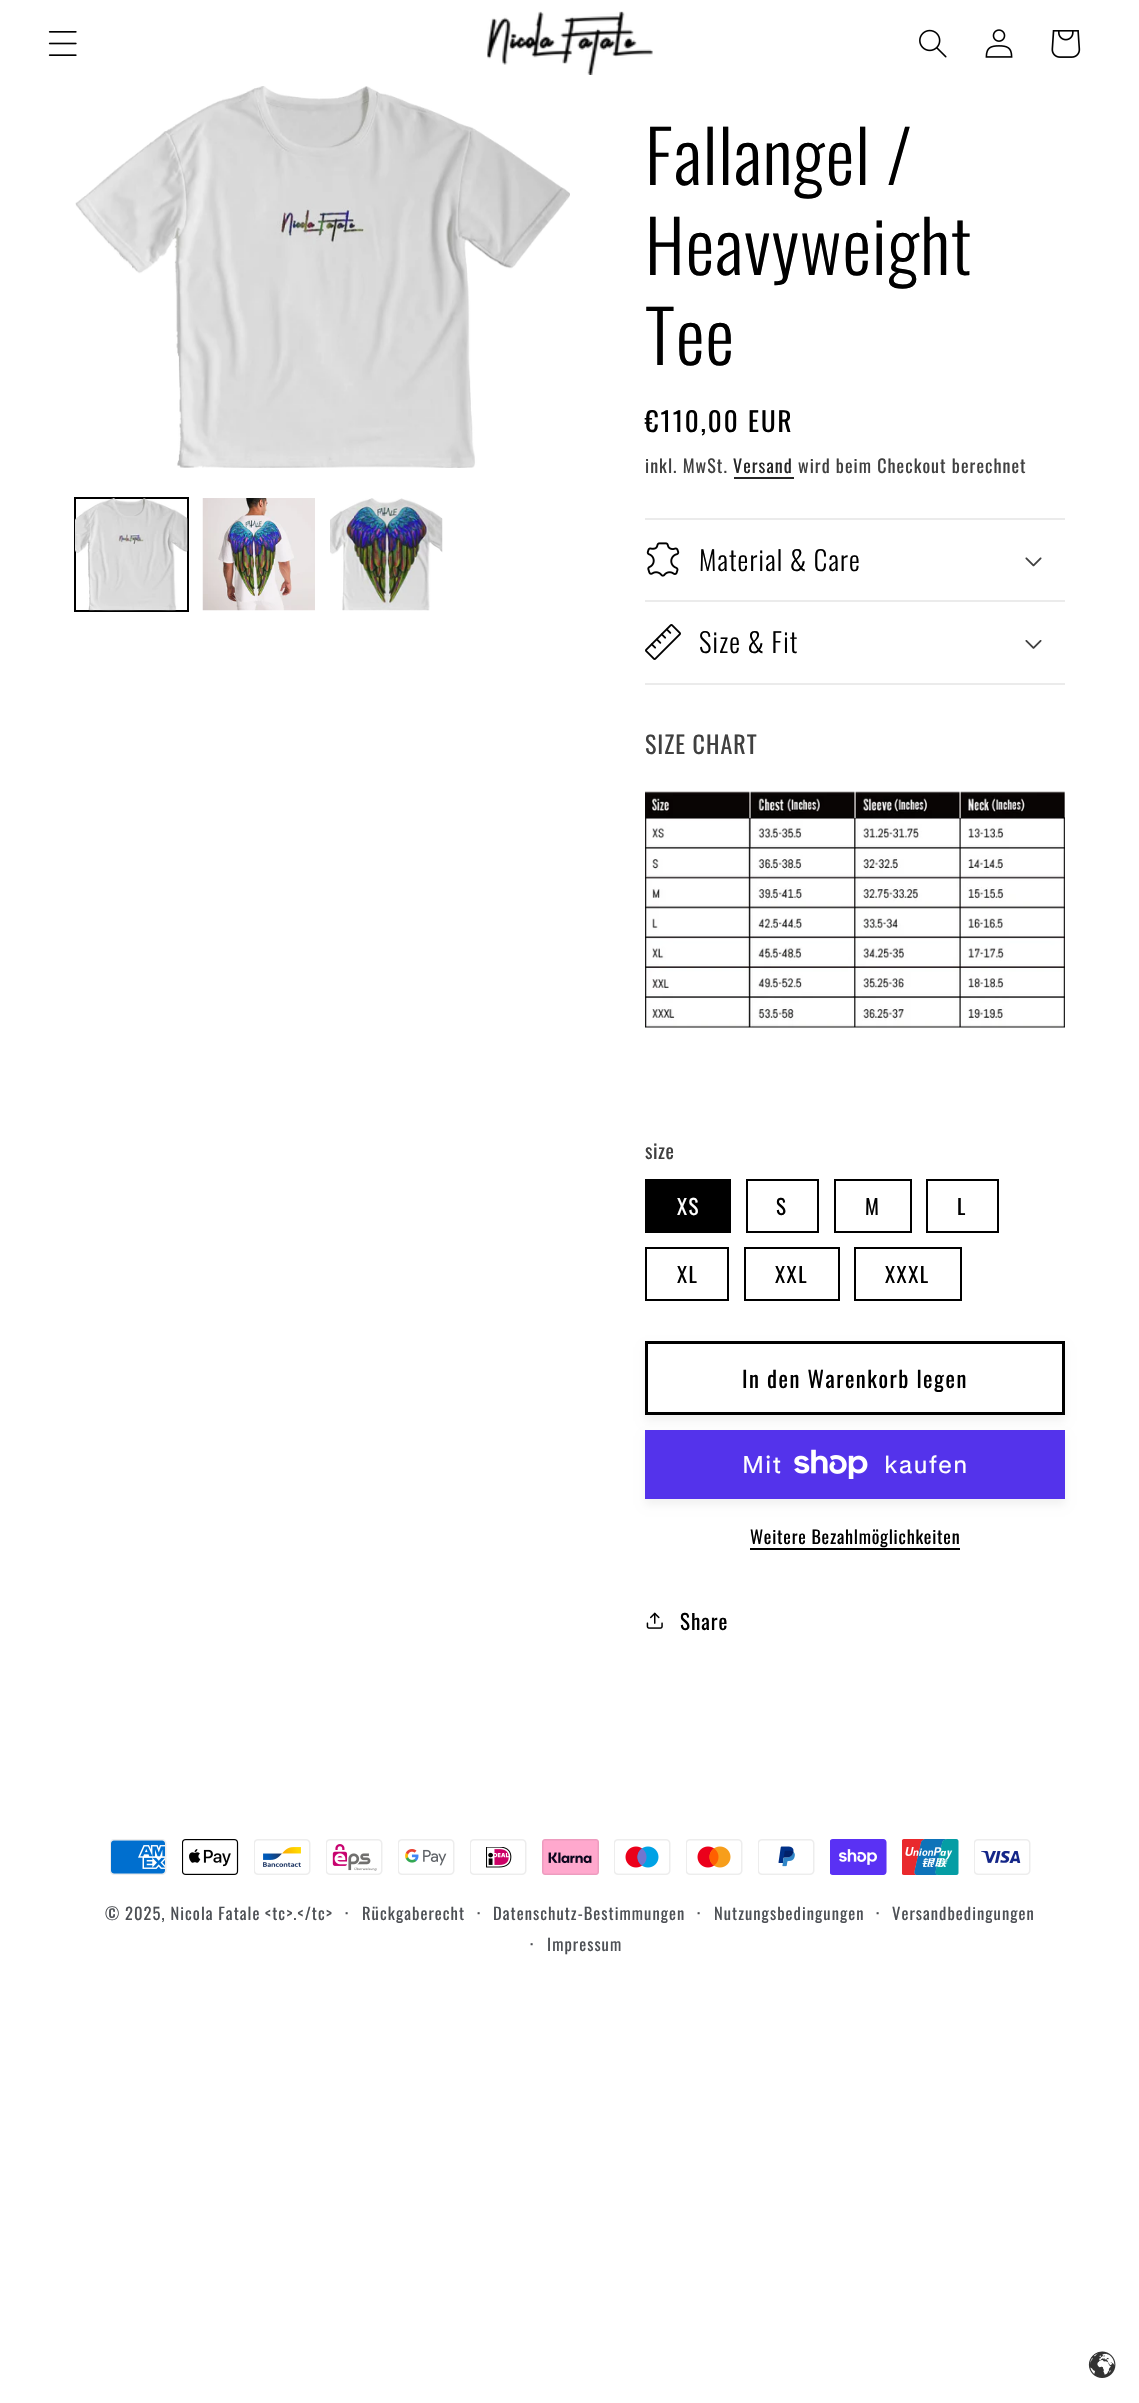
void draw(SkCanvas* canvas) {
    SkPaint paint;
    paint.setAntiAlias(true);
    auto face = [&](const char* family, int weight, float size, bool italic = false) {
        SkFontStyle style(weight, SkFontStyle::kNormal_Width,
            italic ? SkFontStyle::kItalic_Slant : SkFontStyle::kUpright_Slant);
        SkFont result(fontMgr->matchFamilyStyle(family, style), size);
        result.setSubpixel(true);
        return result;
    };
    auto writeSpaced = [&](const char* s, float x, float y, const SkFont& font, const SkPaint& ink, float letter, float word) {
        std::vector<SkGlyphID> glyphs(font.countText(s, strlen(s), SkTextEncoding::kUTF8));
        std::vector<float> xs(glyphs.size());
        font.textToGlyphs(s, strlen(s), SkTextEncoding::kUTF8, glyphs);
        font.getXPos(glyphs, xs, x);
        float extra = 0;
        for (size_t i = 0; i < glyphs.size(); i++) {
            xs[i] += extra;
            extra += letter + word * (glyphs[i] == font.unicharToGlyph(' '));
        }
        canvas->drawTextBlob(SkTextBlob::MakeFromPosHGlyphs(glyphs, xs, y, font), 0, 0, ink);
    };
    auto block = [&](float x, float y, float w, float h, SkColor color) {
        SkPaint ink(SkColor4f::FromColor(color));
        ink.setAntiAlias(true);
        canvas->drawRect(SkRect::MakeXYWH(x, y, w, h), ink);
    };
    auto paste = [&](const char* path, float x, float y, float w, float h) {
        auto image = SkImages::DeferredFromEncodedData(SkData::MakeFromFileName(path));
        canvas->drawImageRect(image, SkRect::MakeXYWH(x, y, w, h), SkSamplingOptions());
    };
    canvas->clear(SK_ColorWHITE);
    paste("pic1.png", 48, 31, 29, 25);
    paste("pic2.png", 487, 11, 166, 64);
    paste("pic3.png", 919, 29, 28, 29);
    paste("pic4.png", 985, 29, 28, 29);
    paste("pic5.png", 1051, 30, 30, 28);
    paste("pic6.png", 75, 86, 495, 382);
    paint.setStyle(SkPaint::kStroke_Style);
    paint.setStrokeWidth(2);
    paint.setColor(SK_ColorBLACK);
    canvas->drawRect(SkRect::MakeXYWH(75, 498, 113, 113), paint);
    paste("pic7.png", 75, 498, 113, 113);
    paste("pic8.png", 202, 498, 113, 113);
    paste("pic9.png", 330, 498, 113, 113);
    auto kFont1 = face("Oswald", 300, 72);
    paint.setStyle(SkPaint::kFill_Style);
    writeSpaced("Fallangel /", 645, 185, kFont1, paint, 1.1f, 0);
    writeSpaced("Heavyweight", 645, 275, kFont1, paint, 1.1f, 0);
    writeSpaced("Tee", 645, 365, kFont1, paint, 1.1f, 0);
    auto kFont2 = face("Oswald", 400, 27);
    writeSpaced("€110,00 EUR", 645, 432, kFont2, paint, 2, 0);
    auto kFont3 = face("Oswald", 400, 18);
    paint.setColor(SkColorSetRGB(64, 64, 64));
    writeSpaced("inkl. MwSt.", 645, 473, kFont3, paint, 1.05f, 0);
    paint.setColor(SkColorSetRGB(38, 38, 38));
    writeSpaced("Versand", 733, 473, kFont3, paint, 1.05f, 0);
    block(734, 477, 60, 2, SkColorSetRGB(38, 38, 38));
    paint.setColor(SkColorSetRGB(64, 64, 64));
    writeSpaced("wird beim Checkout berechnet", 798, 473, kFont3, paint, 1.05f, 0);
    block(645, 518, 420, 2, SkColorSetRGB(235, 235, 235));
    block(645, 600, 420, 2, SkColorSetRGB(235, 235, 235));
    paste("pic10.png", 646, 542, 34, 35);
    auto kFont4 = face("Oswald", 300, 27);
    paint.setColor(SK_ColorBLACK);
    writeSpaced("Material & Care", 699, 571, kFont4, paint, 1.1f, 0);
    paste("pic11.png", 1025, 557, 17, 10);
    block(645, 683, 420, 2, SkColorSetRGB(235, 235, 235));
    paste("pic12.png", 645, 624, 36, 36);
    writeSpaced("Size & Fit", 699, 653, kFont4, paint, 1.1f, 0);
    paste("pic13.png", 1025, 640, 17, 9);
    auto kFont5 = face("Oswald", 400, 24);
    paint.setColor(SkColorSetRGB(64, 64, 64));
    writeSpaced("SIZE CHART", 645, 754, kFont5, paint, 1, 0);
    paste("pic14.png", 645, 791, 420, 237);
    auto kFont6 = face("Oswald", 400, 20);
    writeSpaced("size", 645, 1159, kFont6, paint, 0.5f, 0);
    block(645, 1179, 86, 54, SK_ColorBLACK);
    auto kFont7 = face("Oswald", 400, 21);
    paint.setColor(SK_ColorWHITE);
    writeSpaced("XS", 677, 1215, kFont7, paint, 1.5f, 0);
    paint.setStyle(SkPaint::kStroke_Style);
    paint.setColor(SK_ColorBLACK);
    canvas->drawRect(SkRect::MakeXYWH(747, 1180, 71, 52), paint);
    paint.setStyle(SkPaint::kFill_Style);
    writeSpaced("S", 776, 1215, kFont7, paint, 1.5f, 0);
    paint.setStyle(SkPaint::kStroke_Style);
    canvas->drawRect(SkRect::MakeXYWH(835, 1180, 76, 52), paint);
    paint.setStyle(SkPaint::kFill_Style);
    writeSpaced("M", 865, 1215, kFont7, paint, 1.5f, 0);
    paint.setStyle(SkPaint::kStroke_Style);
    canvas->drawRect(SkRect::MakeXYWH(927, 1180, 71, 52), paint);
    paint.setStyle(SkPaint::kFill_Style);
    writeSpaced("L", 957, 1215, kFont7, paint, 1.5f, 0);
    paint.setStyle(SkPaint::kStroke_Style);
    canvas->drawRect(SkRect::MakeXYWH(646, 1248, 82, 52), paint);
    paint.setStyle(SkPaint::kFill_Style);
    writeSpaced("XL", 677, 1283, kFont7, paint, 1.5f, 0);
    paint.setStyle(SkPaint::kStroke_Style);
    canvas->drawRect(SkRect::MakeXYWH(745, 1248, 94, 52), paint);
    paint.setStyle(SkPaint::kFill_Style);
    writeSpaced("XXL", 775, 1283, kFont7, paint, 1.5f, 0);
    paint.setStyle(SkPaint::kStroke_Style);
    canvas->drawRect(SkRect::MakeXYWH(855, 1248, 106, 52), paint);
    paint.setStyle(SkPaint::kFill_Style);
    writeSpaced("XXXL", 885, 1283, kFont7, paint, 1.5f, 0);
    paint.setColor(SkColorSetARGB(13, 0, 0, 0));
    paint.setMaskFilter(SkMaskFilter::MakeBlur(kNormal_SkBlurStyle, 4));
    canvas->drawRect(SkRect::MakeXYWH(645, 1347, 420, 74), paint);
    paint.setMaskFilter(nullptr);
    block(648, 1344, 414, 68, SK_ColorWHITE);
    paint.setStyle(SkPaint::kStroke_Style);
    paint.setStrokeWidth(3);
    paint.setColor(SK_ColorBLACK);
    canvas->drawRect(SkRect::MakeXYWH(646.5f, 1342.5f, 417, 71), paint);
    auto kFont8 = face("Oswald", 400, 22.5f);
    paint.setStyle(SkPaint::kFill_Style);
    writeSpaced("In den Warenkorb legen", 742, 1388, kFont8, paint, 1.5f, 0);
    paint.setColor(SkColorSetARGB(13, 0, 0, 0));
    paint.setMaskFilter(SkMaskFilter::MakeBlur(kNormal_SkBlurStyle, 4));
    canvas->drawRect(SkRect::MakeXYWH(645, 1436, 420, 69), paint);
    paint.setMaskFilter(nullptr);
    block(645, 1430, 420, 69, SkColorSetRGB(84, 51, 235));
    auto kFont9 = face("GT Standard", 400, 24);
    paint.setColor(SK_ColorWHITE);
    writeSpaced("Mit", 742, 1473, kFont9, paint, 1, 0);
    paste("pic15.png", 794, 1449, 74, 30);
    writeSpaced("kaufen", 884, 1473, kFont9, paint, 1, 0);
    paint.setColor(SK_ColorBLACK);
    writeSpaced("Weitere Bezahlmöglichkeiten", 750, 1544, kFont3, paint, 0.75f, 0);
    block(750, 1548, 210, 2, SK_ColorBLACK);
    paste("pic16.png", 646, 1612, 17, 17);
    writeSpaced("Share", 680, 1630, kFont7, paint, 1, 0);
    paste("pic17.png", 110, 1839, 57, 36);
    paste("pic18.png", 182, 1839, 57, 36);
    paste("pic19.png", 254, 1839, 57, 36);
    paste("pic20.png", 326, 1839, 57, 36);
    paste("pic21.png", 398, 1839, 57, 36);
    paste("pic22.png", 470, 1839, 57, 36);
    paste("pic23.png", 542, 1839, 57, 36);
    paste("pic24.png", 614, 1839, 57, 36);
    paste("pic25.png", 686, 1839, 57, 36);
    paste("pic26.png", 758, 1839, 57, 36);
    paste("pic27.png", 830, 1839, 57, 36);
    paste("pic28.png", 902, 1839, 57, 36);
    paste("pic29.png", 974, 1839, 57, 36);
    auto kFont10 = face("Oswald", 400, 16.5f);
    paint.setColor(SkColorSetRGB(77, 80, 85));
    writeSpaced("© 2025, Nicola Fatale", 105, 1920, kFont10, paint, 1.05f, 0);
    writeSpaced("<tc>.</tc>", 265, 1920, kFont10, paint, 1.05f, 0);
    writeSpaced("·", 345, 1920, kFont3, paint, 1.05f, 0);
    writeSpaced("Rückgaberecht", 362, 1920, kFont10, paint, 1.05f, 0);
    writeSpaced("·", 477, 1920, kFont3, paint, 1.05f, 0);
    writeSpaced("Datenschutz-Bestimmungen", 493, 1920, kFont10, paint, 1.05f, 0);
    writeSpaced("·", 697, 1920, kFont3, paint, 1.05f, 0);
    writeSpaced("Nutzungsbedingungen", 714, 1920, kFont10, paint, 1.05f, 0);
    writeSpaced("·", 876, 1920, kFont3, paint, 1.05f, 0);
    writeSpaced("Versandbedingungen", 892, 1920, kFont10, paint, 1.05f, 0);
    writeSpaced("·", 530, 1951, kFont3, paint, 1.05f, 0);
    writeSpaced("Impressum", 547, 1951, kFont10, paint, 1.05f, 0);
    paste("pic30.png", 1088, 2351, 28, 27);
}
